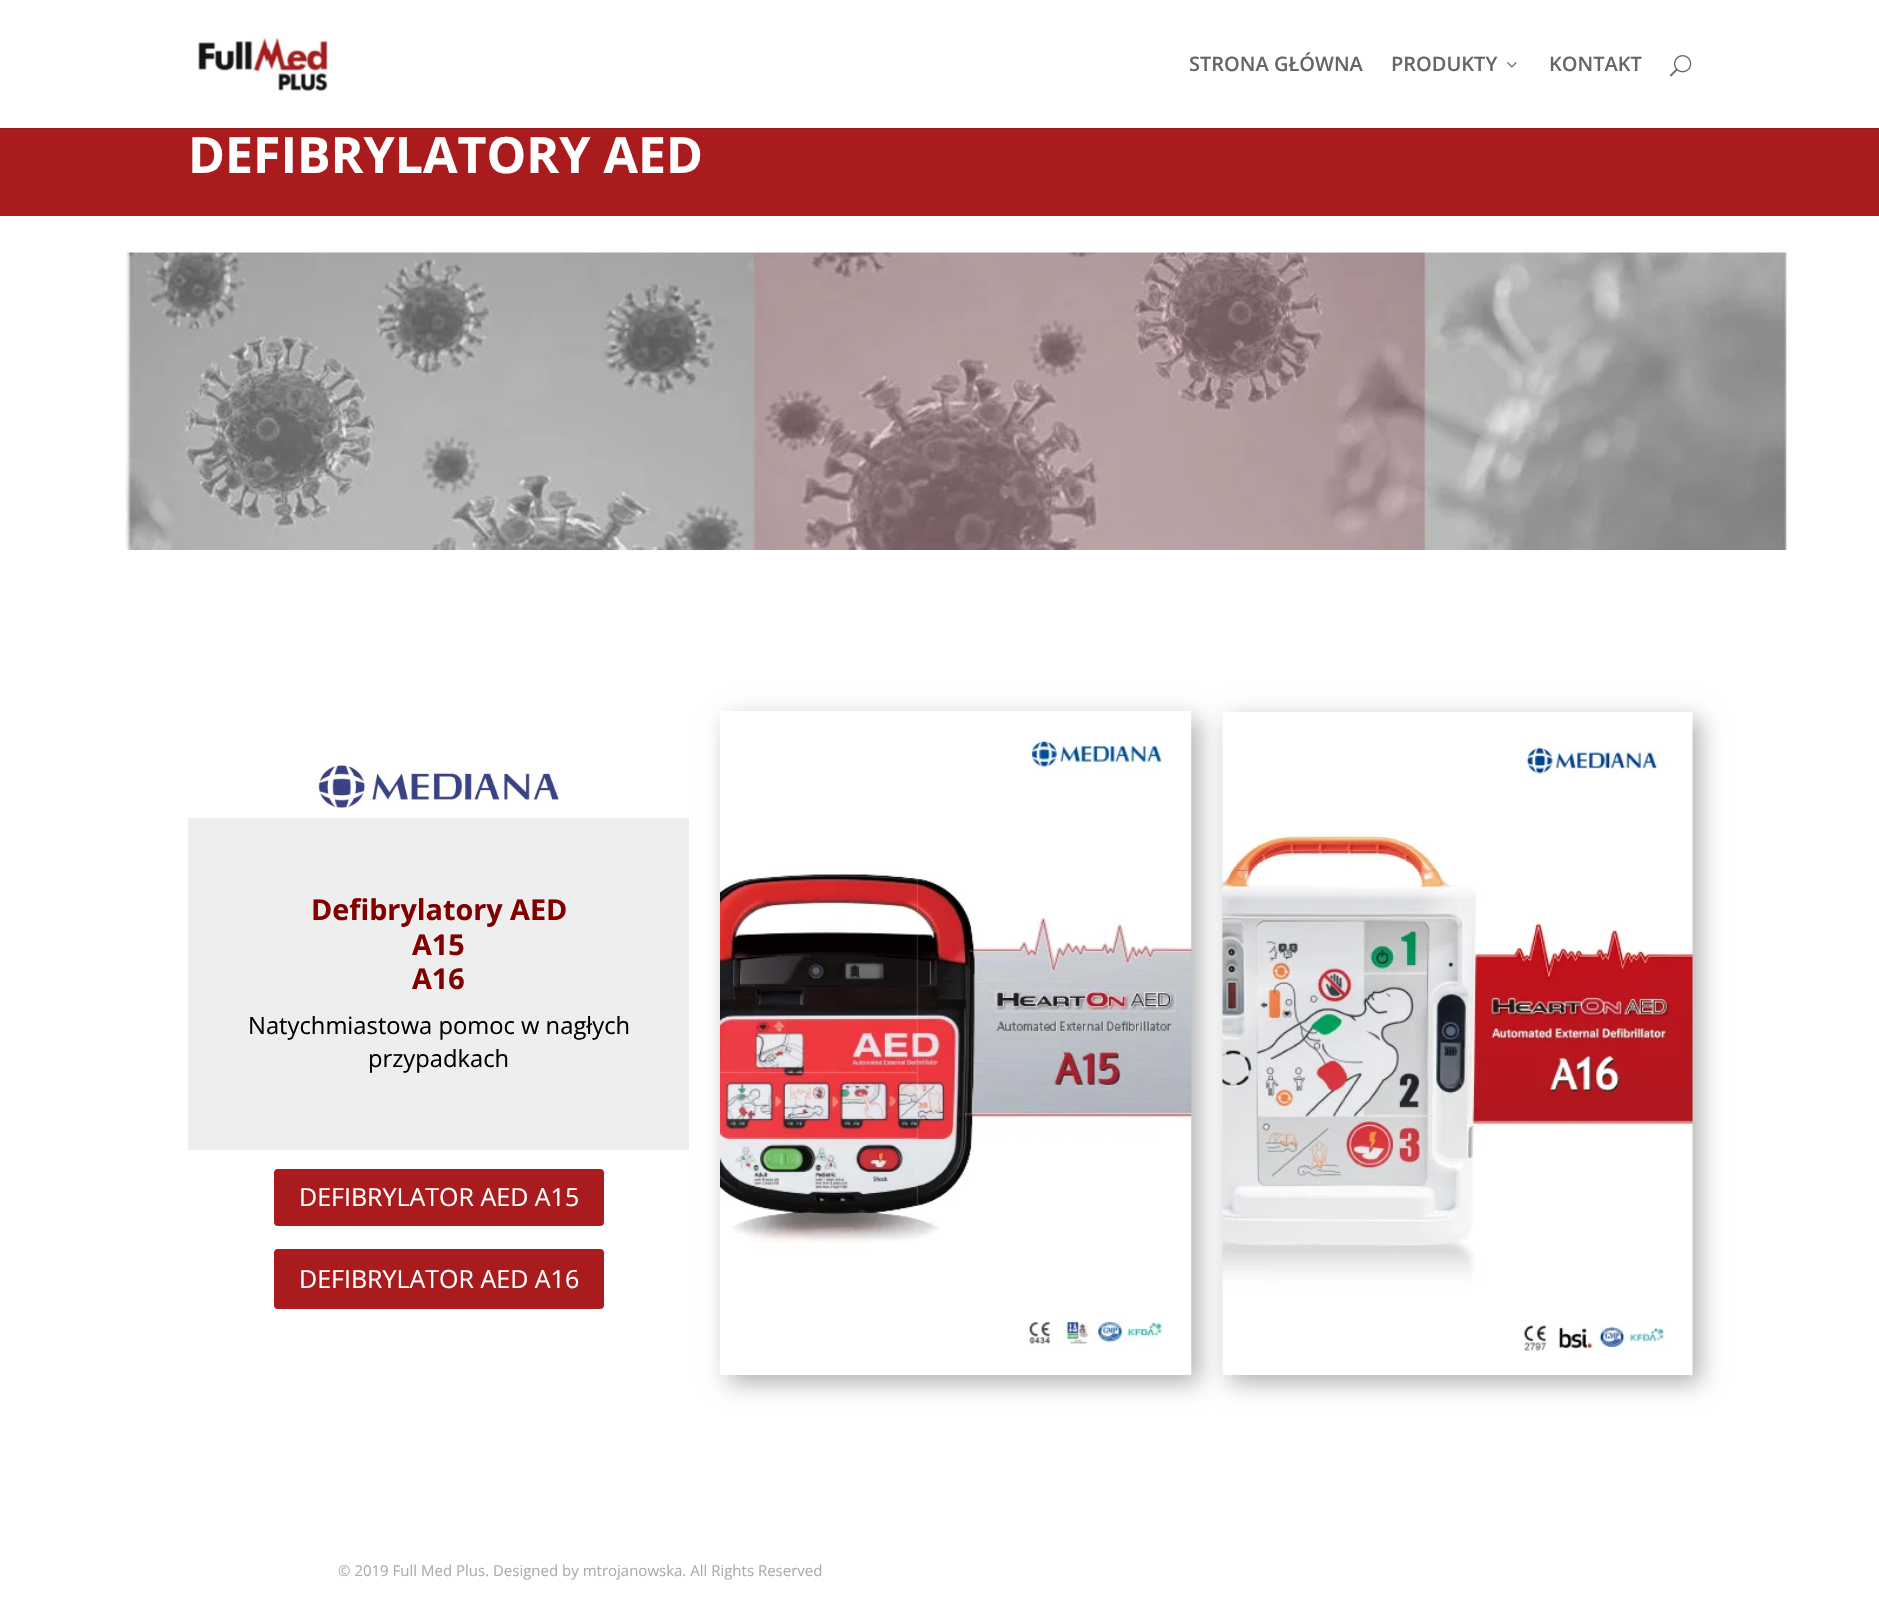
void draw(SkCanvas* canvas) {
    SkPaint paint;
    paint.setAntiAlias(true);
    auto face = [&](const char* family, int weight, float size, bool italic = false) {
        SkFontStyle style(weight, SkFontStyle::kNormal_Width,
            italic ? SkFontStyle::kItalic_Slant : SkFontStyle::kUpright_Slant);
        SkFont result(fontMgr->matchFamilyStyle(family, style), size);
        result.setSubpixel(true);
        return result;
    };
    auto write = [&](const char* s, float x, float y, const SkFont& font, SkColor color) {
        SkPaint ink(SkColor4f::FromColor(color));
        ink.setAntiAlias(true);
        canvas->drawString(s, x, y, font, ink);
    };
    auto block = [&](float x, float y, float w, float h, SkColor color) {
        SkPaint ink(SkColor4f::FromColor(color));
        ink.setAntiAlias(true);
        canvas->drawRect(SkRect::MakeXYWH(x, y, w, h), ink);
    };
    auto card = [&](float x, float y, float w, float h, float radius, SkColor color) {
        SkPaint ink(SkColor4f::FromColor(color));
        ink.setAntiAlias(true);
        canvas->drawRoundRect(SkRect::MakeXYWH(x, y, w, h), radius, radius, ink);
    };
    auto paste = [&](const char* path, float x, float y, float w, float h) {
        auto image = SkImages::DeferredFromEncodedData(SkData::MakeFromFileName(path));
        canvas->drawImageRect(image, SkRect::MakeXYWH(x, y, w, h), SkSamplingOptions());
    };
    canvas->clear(SK_ColorWHITE);
    block(0, 128, 1879, 1, SkColorSetRGB(153, 24, 26));
    paste("pic1.png", 198, 37, 130, 55);
    auto kFont1 = face("Open Sans", 600, 20);
    write("STRONA GŁÓWNA", 1189, 71, kFont1, SkColorSetRGB(102, 102, 102));
    write("PRODUKTY", 1391, 71, kFont1, SkColorSetRGB(102, 102, 102));
    paste("pic2.png", 1507, 62, 10, 6);
    write("KONTAKT", 1549, 71, kFont1, SkColorSetRGB(102, 102, 102));
    paste("pic3.png", 1670, 55, 22, 22);
    block(0, 129, 1879, 87, SkColorSetRGB(170, 27, 29));
    auto kFont2 = face("Open Sans", 700, 50);
    write("DEFIBRYLATORY AED", 188, 173, kFont2, SK_ColorWHITE);
    paste("pic4.png", 125, 252, 1663, 298);
    paste("pic5.png", 318, 765, 241, 43);
    block(188, 818, 501, 332, SkColorSetRGB(238, 238, 238));
    auto kFont3 = face("Open Sans", 700, 28.75f);
    write("Defibrylatory AED", 311, 920, kFont3, SkColorSetRGB(128, 0, 0));
    write("A15", 412, 955, kFont3, SkColorSetRGB(128, 0, 0));
    write("A16", 412, 989, kFont3, SkColorSetRGB(128, 0, 0));
    auto kFont4 = face("Open Sans", 400, 23.75f);
    write("Natychmiastowa pomoc w nagłych", 248, 1034, kFont4, SK_ColorBLACK);
    write("przypadkach", 368, 1067, kFont4, SK_ColorBLACK);
    card(274, 1169, 330, 57, 4, SkColorSetRGB(170, 27, 29));
    auto kFont5 = face("Open Sans", 400, 25);
    write("DEFIBRYLATOR AED A15", 299, 1206, kFont5, SK_ColorWHITE);
    card(274, 1249, 330, 60, 4, SkColorSetRGB(170, 27, 29));
    write("DEFIBRYLATOR AED A16", 299, 1288, kFont5, SK_ColorWHITE);
    canvas->save();
    canvas->clipPath(SkPathBuilder(SkPathFillType::kEvenOdd).moveTo(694, 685).lineTo(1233, 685).lineTo(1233, 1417).lineTo(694, 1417).close().moveTo(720, 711).lineTo(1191, 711).lineTo(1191, 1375).lineTo(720, 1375).close().detach(), true);
    paint.setColor(SkColorSetARGB(77, 0, 0, 0));
    paint.setMaskFilter(SkMaskFilter::MakeBlur(kNormal_SkBlurStyle, 11));
    canvas->drawRect(SkRect::MakeXYWH(728, 719, 471, 664), paint);
    paint.setMaskFilter(nullptr);
    canvas->restore();
    paste("pic6.png", 720, 715, 472, 660);
    paint.setMaskFilter(SkMaskFilter::MakeBlur(kNormal_SkBlurStyle, 11));
    canvas->drawRect(SkRect::MakeXYWH(1230, 719, 470, 664), paint);
    paint.setMaskFilter(nullptr);
    paste("pic7.png", 1222, 712, 471, 663);
    auto kFont6 = face("Open Sans", 400, 15);
    write("© 2019 Full Med Plus. Designed by mtrojanowska. All Rights Reserved", 338, 1576, kFont6, SkColorSetRGB(171, 171, 171));
}
